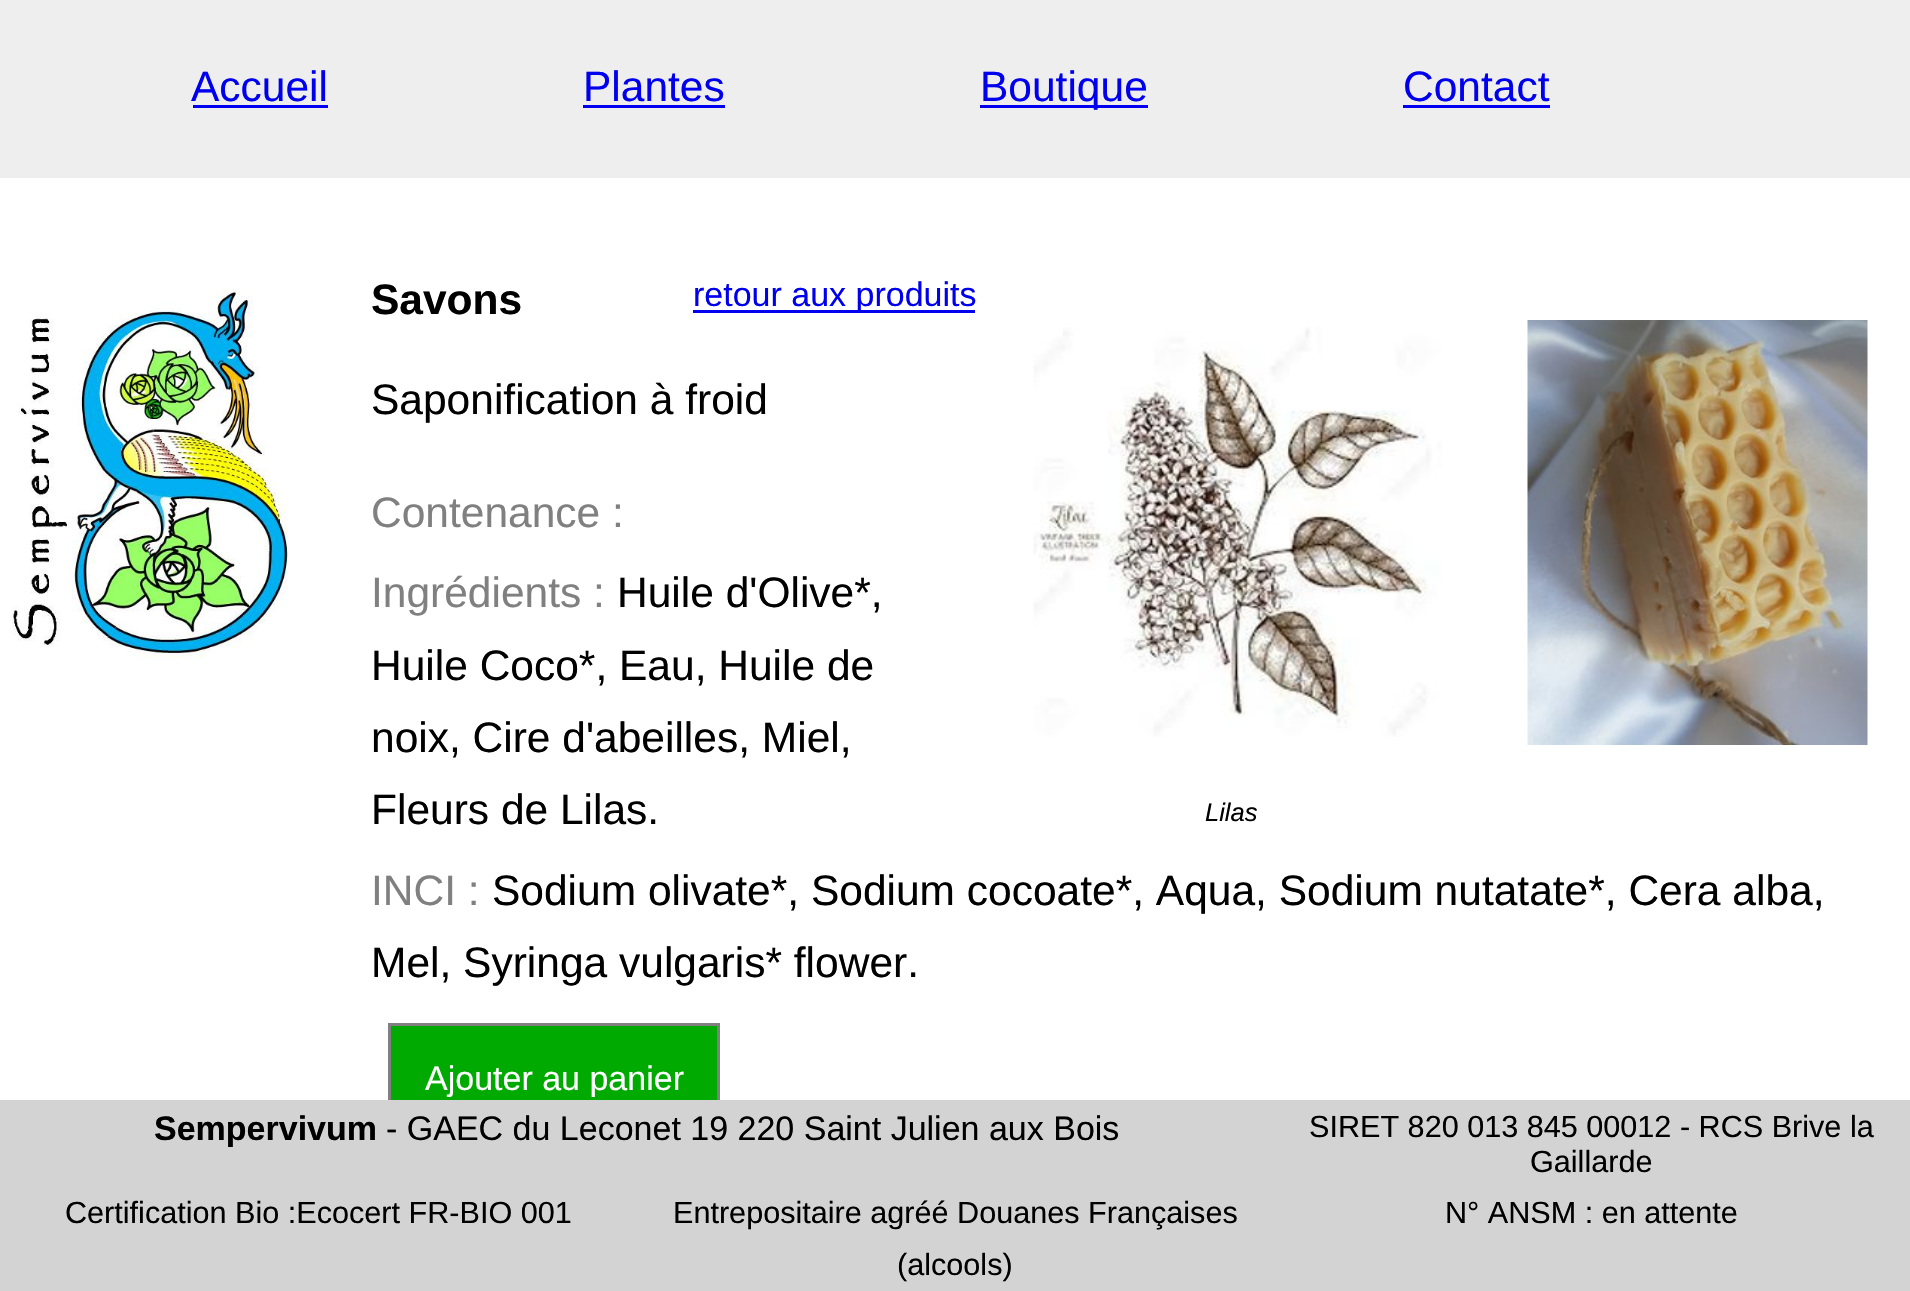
void draw(SkCanvas* canvas) {
    SkPaint paint;
    paint.setAntiAlias(true);
    auto face = [&](const char* family, int weight, float size, bool italic = false) {
        SkFontStyle style(weight, SkFontStyle::kNormal_Width,
            italic ? SkFontStyle::kItalic_Slant : SkFontStyle::kUpright_Slant);
        SkFont result(fontMgr->matchFamilyStyle(family, style), size);
        result.setSubpixel(true);
        return result;
    };
    auto write = [&](const char* s, float x, float y, const SkFont& font, SkColor color) {
        SkPaint ink(SkColor4f::FromColor(color));
        ink.setAntiAlias(true);
        canvas->drawString(s, x, y, font, ink);
    };
    auto block = [&](float x, float y, float w, float h, SkColor color) {
        SkPaint ink(SkColor4f::FromColor(color));
        ink.setAntiAlias(true);
        canvas->drawRect(SkRect::MakeXYWH(x, y, w, h), ink);
    };
    auto paste = [&](const char* path, float x, float y, float w, float h) {
        auto image = SkImages::DeferredFromEncodedData(SkData::MakeFromFileName(path));
        canvas->drawImageRect(image, SkRect::MakeXYWH(x, y, w, h), SkSamplingOptions());
    };
    canvas->clear(SK_ColorWHITE);
    block(0, 0, 1910, 178, SkColorSetRGB(238, 238, 238));
    auto kFont1 = face("Liberation Sans", 400, 42.5f);
    write("Accueil", 191, 101, kFont1, SkColorSetRGB(0, 0, 238));
    block(193, 105, 135, 3, SkColorSetRGB(0, 0, 238));
    write("Plantes", 583, 101, kFont1, SkColorSetRGB(0, 0, 238));
    block(583, 105, 142, 3, SkColorSetRGB(0, 0, 238));
    block(980, 105, 168, 3, SkColorSetRGB(0, 0, 238));
    write("Boutique", 980, 101, kFont1, SkColorSetRGB(0, 0, 238));
    write("Contact", 1403, 101, kFont1, SkColorSetRGB(0, 0, 238));
    block(1403, 105, 147, 3, SkColorSetRGB(0, 0, 238));
    paste("pic1.png", 12, 289, 276, 370);
    auto kFont2 = face("Liberation Sans", 700, 42.5f);
    write("Savons", 371, 314, kFont2, SK_ColorBLACK);
    block(693, 310, 282, 3, SkColorSetRGB(0, 0, 238));
    auto kFont3 = face("Liberation Sans", 400, 34);
    write("retour aux produits", 693, 306, kFont3, SkColorSetRGB(0, 0, 238));
    write("Saponification à froid", 371, 414, kFont1, SK_ColorBLACK);
    paste("pic2.png", 1527, 320, 341, 425);
    write("Contenance :", 371, 527, kFont1, SkColorSetRGB(128, 128, 128));
    write("Ingrédients :", 371, 607, kFont1, SkColorSetRGB(128, 128, 128));
    write("Huile d'Olive*,", 617, 607, kFont1, SK_ColorBLACK);
    write("Huile Coco*, Eau, Huile de", 371, 680, kFont1, SK_ColorBLACK);
    write("noix, Cire d'abeilles, Miel,", 371, 752, kFont1, SK_ColorBLACK);
    write("Fleurs de Lilas.", 371, 824, kFont1, SK_ColorBLACK);
    paste("pic3.png", 1033, 327, 409, 410);
    auto kFont4 = face("Liberation Sans", 400, 25.5f, true);
    write("Lilas", 1205, 821, kFont4, SK_ColorBLACK);
    write("INCI :", 371, 905, kFont1, SkColorSetRGB(128, 128, 128));
    write("Sodium olivate*, Sodium cocoate*, Aqua, Sodium nutatate*, Cera alba,", 492, 905, kFont1, SK_ColorBLACK);
    write("Mel, Syringa vulgaris* flower.", 371, 977, kFont1, SK_ColorBLACK);
    block(391, 1026, 326, 74, SkColorSetRGB(0, 170, 0));
    paint.setStyle(SkPaint::kStroke_Style);
    paint.setStrokeWidth(3);
    paint.setColor(SkColorSetRGB(128, 128, 128));
    canvas->drawRect(SkRect::MakeXYWH(389.5f, 1024.5f, 329, 107), paint);
    write("Ajouter au panier", 425, 1090, kFont3, SK_ColorWHITE);
    block(0, 1100, 1910, 191, SkColorSetRGB(211, 211, 211));
    auto kFont5 = face("Liberation Sans", 700, 34);
    write("Sempervivum", 154, 1140, kFont5, SK_ColorBLACK);
    write("- GAEC du Leconet 19 220 Saint Julien aux Bois", 386, 1140, kFont3, SK_ColorBLACK);
    auto kFont6 = face("Liberation Sans", 400, 30.6f);
    write("SIRET 820 013 845 00012 - RCS Brive la", 1309, 1137, kFont6, SK_ColorBLACK);
    write("Gaillarde", 1530, 1172, kFont6, SK_ColorBLACK);
    write("Certification Bio :Ecocert FR-BIO 001", 65, 1223, kFont6, SK_ColorBLACK);
    write("Entrepositaire agréé Douanes Françaises", 673, 1223, kFont6, SK_ColorBLACK);
    write("(alcools)", 897, 1275, kFont6, SK_ColorBLACK);
    write("N° ANSM : en attente", 1445, 1223, kFont6, SK_ColorBLACK);
}
